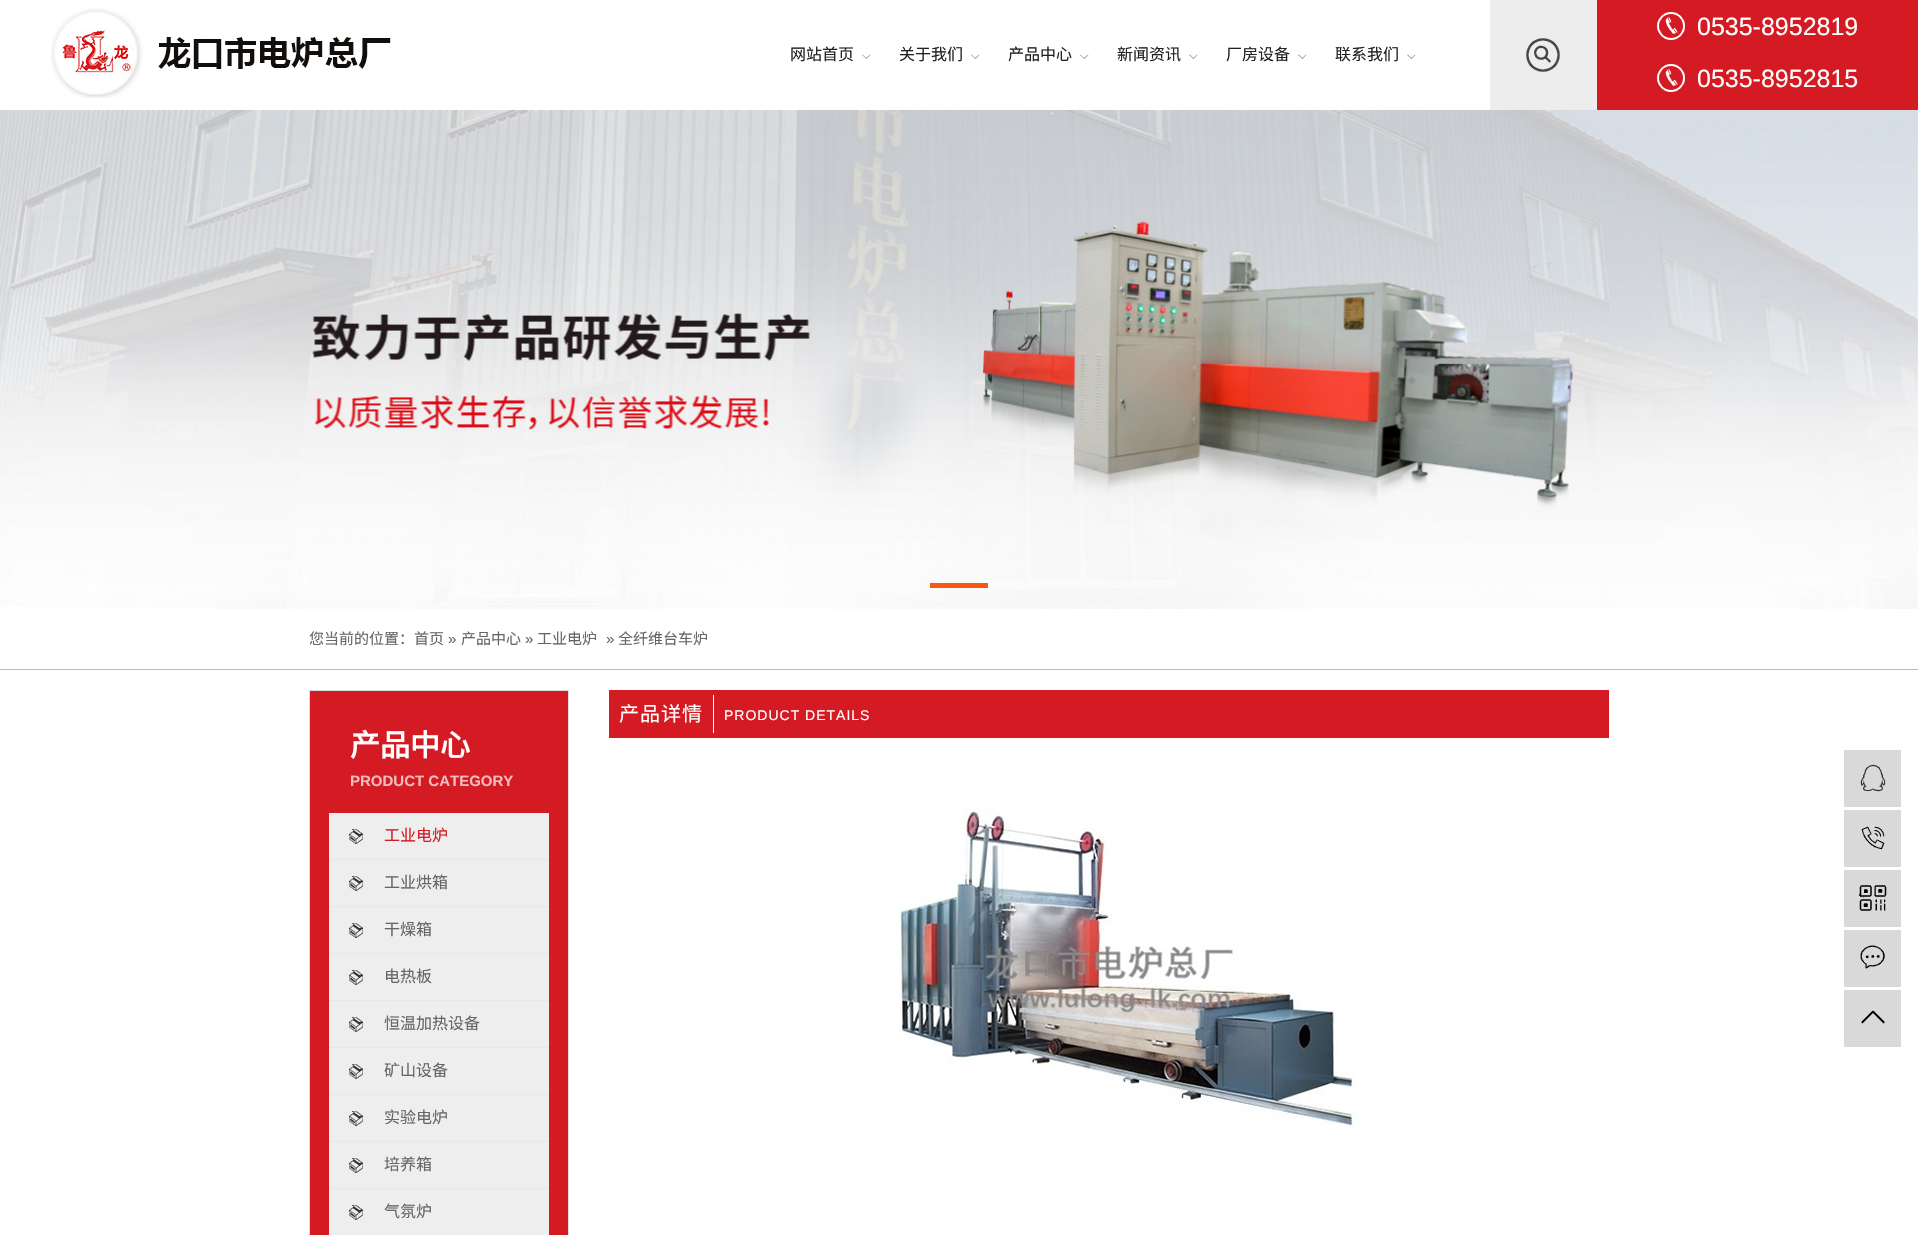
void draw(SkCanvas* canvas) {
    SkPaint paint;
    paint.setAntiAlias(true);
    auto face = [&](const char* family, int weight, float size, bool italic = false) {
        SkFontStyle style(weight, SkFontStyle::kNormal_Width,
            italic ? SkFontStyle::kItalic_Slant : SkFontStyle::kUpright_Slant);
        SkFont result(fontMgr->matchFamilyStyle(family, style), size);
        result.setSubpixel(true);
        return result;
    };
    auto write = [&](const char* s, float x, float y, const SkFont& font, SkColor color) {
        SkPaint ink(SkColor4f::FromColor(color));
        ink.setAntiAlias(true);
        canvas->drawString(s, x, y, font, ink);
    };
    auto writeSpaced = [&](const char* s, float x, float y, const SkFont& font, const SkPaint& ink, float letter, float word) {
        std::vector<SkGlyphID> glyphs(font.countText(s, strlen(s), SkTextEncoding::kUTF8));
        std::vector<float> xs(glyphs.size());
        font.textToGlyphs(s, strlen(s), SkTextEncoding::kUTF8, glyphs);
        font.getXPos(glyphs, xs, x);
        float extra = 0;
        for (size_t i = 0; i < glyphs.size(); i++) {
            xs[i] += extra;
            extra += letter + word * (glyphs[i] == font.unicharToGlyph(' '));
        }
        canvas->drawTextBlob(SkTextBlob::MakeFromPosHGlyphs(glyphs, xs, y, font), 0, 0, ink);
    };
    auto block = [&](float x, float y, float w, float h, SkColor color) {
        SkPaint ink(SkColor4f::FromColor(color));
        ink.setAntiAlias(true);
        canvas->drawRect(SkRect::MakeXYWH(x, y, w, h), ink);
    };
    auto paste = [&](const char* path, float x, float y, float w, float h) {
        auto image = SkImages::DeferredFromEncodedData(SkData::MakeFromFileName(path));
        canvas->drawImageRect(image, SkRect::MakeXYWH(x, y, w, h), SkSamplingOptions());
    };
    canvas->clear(SK_ColorWHITE);
    paste("pic1.png", 51, 8, 346, 90);
    auto kFont1 = face("Noto Sans CJK SC", 400, 16);
    write("网站首页", 790, 60, kFont1, SkColorSetRGB(34, 34, 34));
    paint.setColor(SkColorSetRGB(159, 159, 159));
    canvas->drawPath(SkPathBuilder().moveTo(870, 54.5f).lineTo(870.5f, 55).lineTo(866.5f, 59).lineTo(865.5f, 58.5f).close().detach(), paint);
    canvas->drawPath(SkPathBuilder().moveTo(862.5f, 54.5f).lineTo(867, 58.5f).lineTo(866.5f, 59).lineTo(862, 55).close().detach(), paint);
    write("关于我们", 899, 60, kFont1, SkColorSetRGB(34, 34, 34));
    canvas->drawPath(SkPathBuilder().moveTo(979, 54.5f).lineTo(979.5f, 55).lineTo(975.5f, 59).lineTo(974.5f, 58.5f).close().detach(), paint);
    canvas->drawPath(SkPathBuilder().moveTo(971.5f, 54.5f).lineTo(976, 58.5f).lineTo(975.5f, 59).lineTo(971, 55).close().detach(), paint);
    write("产品中心", 1008, 60, kFont1, SkColorSetRGB(34, 34, 34));
    canvas->drawPath(SkPathBuilder().moveTo(1088, 54.5f).lineTo(1088.5f, 55).lineTo(1084.5f, 59).lineTo(1083.5f, 58.5f).close().detach(), paint);
    canvas->drawPath(SkPathBuilder().moveTo(1080.5f, 54.5f).lineTo(1085, 58.5f).lineTo(1084.5f, 59).lineTo(1080, 55).close().detach(), paint);
    write("新闻资讯", 1117, 60, kFont1, SkColorSetRGB(34, 34, 34));
    canvas->drawPath(SkPathBuilder().moveTo(1197, 54.5f).lineTo(1197.5f, 55).lineTo(1193.5f, 59).lineTo(1192.5f, 58.5f).close().detach(), paint);
    canvas->drawPath(SkPathBuilder().moveTo(1190, 54.5f).lineTo(1194, 58.5f).lineTo(1193.5f, 59).lineTo(1189, 55).close().detach(), paint);
    write("厂房设备", 1226, 60, kFont1, SkColorSetRGB(34, 34, 34));
    canvas->drawPath(SkPathBuilder().moveTo(1306, 54.5f).lineTo(1306.5f, 55).lineTo(1302.5f, 59).lineTo(1301.5f, 58.5f).close().detach(), paint);
    canvas->drawPath(SkPathBuilder().moveTo(1299, 54.5f).lineTo(1303, 58.5f).lineTo(1302.5f, 59).lineTo(1298, 55).close().detach(), paint);
    write("联系我们", 1335, 60, kFont1, SkColorSetRGB(34, 34, 34));
    canvas->drawPath(SkPathBuilder().moveTo(1415, 54.5f).lineTo(1415.5f, 55).lineTo(1411.5f, 59).lineTo(1410.5f, 58.5f).close().detach(), paint);
    canvas->drawPath(SkPathBuilder().moveTo(1408, 54.5f).lineTo(1412, 58.5f).lineTo(1411.5f, 59).lineTo(1407, 55).close().detach(), paint);
    block(1490, 0, 107, 110, SkColorSetRGB(237, 237, 237));
    paste("pic2.png", 1526, 38, 34, 34);
    block(1597, 0, 321, 110, SkColorSetRGB(212, 27, 35));
    paste("pic3.png", 1657, 12, 28, 28);
    auto kFont2 = face("Liberation Sans", 400, 25);
    write("0535-8952819", 1697, 35, kFont2, SK_ColorWHITE);
    paste("pic3.png", 1657, 64, 28, 28);
    write("0535-8952815", 1697, 87, kFont2, SK_ColorWHITE);
    paste("pic4.png", 0, 110, 1918, 499);
    block(930, 583, 58, 5, SkColorSetRGB(248, 88, 17));
    block(0, 669, 1918, 1, SkColorSetRGB(186, 186, 186));
    auto kFont3 = face("Noto Sans CJK SC", 400, 15);
    write("您当前的位置：首页", 309, 644, kFont3, SkColorSetRGB(102, 102, 102));
    auto kFont4 = face("Liberation Sans", 400, 15);
    write("»", 448, 644, kFont4, SkColorSetRGB(102, 102, 102));
    write("产品中心", 461, 644, kFont3, SkColorSetRGB(102, 102, 102));
    write("»", 525, 644, kFont4, SkColorSetRGB(102, 102, 102));
    write("工业电炉", 537, 644, kFont3, SkColorSetRGB(102, 102, 102));
    write("»", 606, 644, kFont4, SkColorSetRGB(102, 102, 102));
    write("全纤维台车炉", 618, 644, kFont3, SkColorSetRGB(102, 102, 102));
    block(609, 690, 1000, 48, SkColorSetRGB(212, 27, 35));
    block(713, 695, 1, 38, SK_ColorWHITE);
    auto kFont5 = face("Noto Sans CJK SC", 400, 20);
    paint.setColor(SK_ColorWHITE);
    writeSpaced("产品详情", 619, 721, kFont5, paint, 1, 0);
    auto kFont6 = face("Liberation Sans", 400, 14);
    writeSpaced("PRODUCT DETAILS", 724, 720, kFont6, paint, 1, 0);
    paste("pic5.png", 897, 806, 459, 320);
    paint.setColor(SkColorSetRGB(212, 27, 35));
    canvas->drawRect(SkRect::MakeXYWH(309.5f, 690.5f, 259, 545), paint);
    paint.setStyle(SkPaint::kStroke_Style);
    paint.setStrokeWidth(1);
    paint.setColor(SkColorSetRGB(221, 221, 221));
    canvas->drawRect(SkRect::MakeXYWH(309.5f, 690.5f, 259, 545), paint);
    auto kFont7 = face("Noto Sans CJK SC", 700, 30);
    write("产品中心", 350, 756, kFont7, SK_ColorWHITE);
    auto kFont8 = face("Liberation Sans", 700, 15);
    write("PRODUCT CATEGORY", 350, 786, kFont8, SkColorSetRGB(242, 187, 189));
    block(329, 813, 220, 46, SkColorSetRGB(238, 238, 238));
    paste("pic6.png", 349, 829, 14, 15);
    block(329, 859, 220, 1, SkColorSetRGB(231, 231, 231));
    write("工业电炉", 384, 841, kFont1, SkColorSetRGB(212, 27, 35));
    block(329, 860, 220, 46, SkColorSetRGB(238, 238, 238));
    paste("pic6.png", 349, 876, 14, 15);
    block(329, 906, 220, 1, SkColorSetRGB(231, 231, 231));
    write("工业烘箱", 384, 888, kFont1, SkColorSetRGB(102, 102, 102));
    block(329, 907, 220, 46, SkColorSetRGB(238, 238, 238));
    paste("pic6.png", 349, 923, 14, 15);
    block(329, 953, 220, 1, SkColorSetRGB(231, 231, 231));
    write("干燥箱", 384, 935, kFont1, SkColorSetRGB(102, 102, 102));
    block(329, 954, 220, 46, SkColorSetRGB(238, 238, 238));
    paste("pic6.png", 349, 970, 14, 15);
    block(329, 1000, 220, 1, SkColorSetRGB(231, 231, 231));
    write("电热板", 384, 982, kFont1, SkColorSetRGB(102, 102, 102));
    block(329, 1001, 220, 46, SkColorSetRGB(238, 238, 238));
    paste("pic6.png", 349, 1017, 14, 15);
    block(329, 1047, 220, 1, SkColorSetRGB(231, 231, 231));
    write("恒温加热设备", 384, 1029, kFont1, SkColorSetRGB(102, 102, 102));
    block(329, 1048, 220, 46, SkColorSetRGB(238, 238, 238));
    paste("pic6.png", 349, 1064, 14, 15);
    block(329, 1094, 220, 1, SkColorSetRGB(231, 231, 231));
    write("矿山设备", 384, 1076, kFont1, SkColorSetRGB(102, 102, 102));
    block(329, 1095, 220, 46, SkColorSetRGB(238, 238, 238));
    paste("pic6.png", 349, 1111, 14, 15);
    block(329, 1141, 220, 1, SkColorSetRGB(231, 231, 231));
    write("实验电炉", 384, 1123, kFont1, SkColorSetRGB(102, 102, 102));
    block(329, 1142, 220, 46, SkColorSetRGB(238, 238, 238));
    paste("pic6.png", 349, 1158, 14, 15);
    block(329, 1188, 220, 1, SkColorSetRGB(231, 231, 231));
    write("培养箱", 384, 1170, kFont1, SkColorSetRGB(102, 102, 102));
    block(329, 1189, 220, 46, SkColorSetRGB(238, 238, 238));
    paste("pic6.png", 349, 1205, 14, 15);
    write("气氛炉", 384, 1217, kFont1, SkColorSetRGB(102, 102, 102));
    block(1844, 750, 57, 57, SkColorSetRGB(217, 217, 217));
    paste("pic7.png", 1860, 764, 26, 28);
    block(1844, 810, 57, 57, SkColorSetRGB(217, 217, 217));
    paste("pic8.png", 1861, 826, 24, 24);
    block(1844, 870, 57, 57, SkColorSetRGB(217, 217, 217));
    paste("pic9.png", 1859, 885, 28, 26);
    block(1844, 930, 57, 57, SkColorSetRGB(217, 217, 217));
    paste("pic10.png", 1860, 945, 25, 24);
    block(1844, 990, 57, 57, SkColorSetRGB(217, 217, 217));
    paste("pic11.png", 1861, 1010, 24, 14);
}
